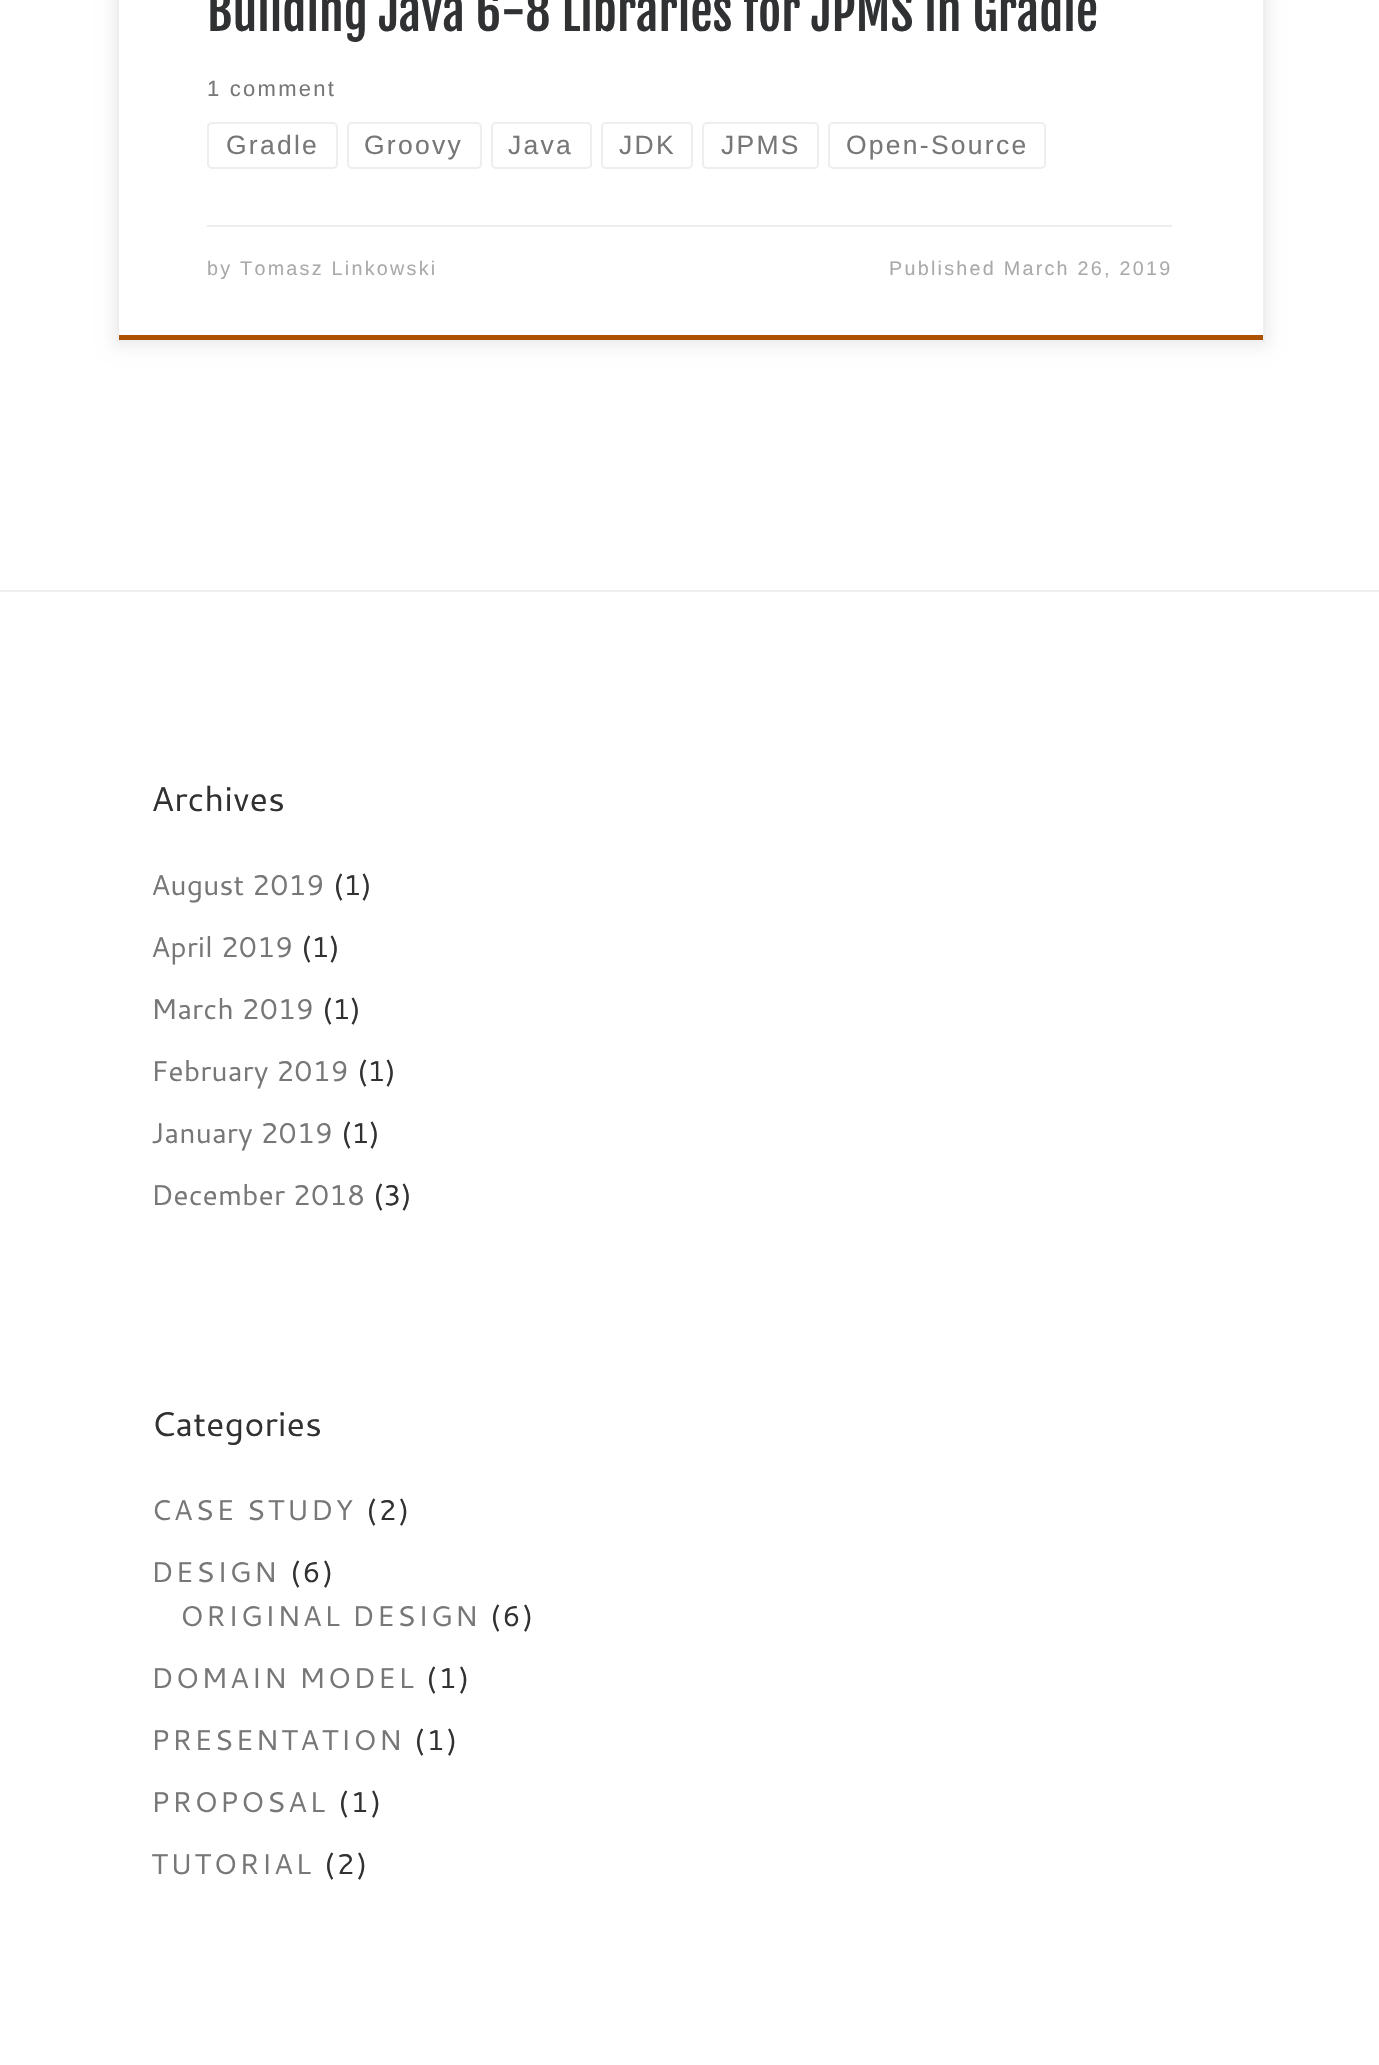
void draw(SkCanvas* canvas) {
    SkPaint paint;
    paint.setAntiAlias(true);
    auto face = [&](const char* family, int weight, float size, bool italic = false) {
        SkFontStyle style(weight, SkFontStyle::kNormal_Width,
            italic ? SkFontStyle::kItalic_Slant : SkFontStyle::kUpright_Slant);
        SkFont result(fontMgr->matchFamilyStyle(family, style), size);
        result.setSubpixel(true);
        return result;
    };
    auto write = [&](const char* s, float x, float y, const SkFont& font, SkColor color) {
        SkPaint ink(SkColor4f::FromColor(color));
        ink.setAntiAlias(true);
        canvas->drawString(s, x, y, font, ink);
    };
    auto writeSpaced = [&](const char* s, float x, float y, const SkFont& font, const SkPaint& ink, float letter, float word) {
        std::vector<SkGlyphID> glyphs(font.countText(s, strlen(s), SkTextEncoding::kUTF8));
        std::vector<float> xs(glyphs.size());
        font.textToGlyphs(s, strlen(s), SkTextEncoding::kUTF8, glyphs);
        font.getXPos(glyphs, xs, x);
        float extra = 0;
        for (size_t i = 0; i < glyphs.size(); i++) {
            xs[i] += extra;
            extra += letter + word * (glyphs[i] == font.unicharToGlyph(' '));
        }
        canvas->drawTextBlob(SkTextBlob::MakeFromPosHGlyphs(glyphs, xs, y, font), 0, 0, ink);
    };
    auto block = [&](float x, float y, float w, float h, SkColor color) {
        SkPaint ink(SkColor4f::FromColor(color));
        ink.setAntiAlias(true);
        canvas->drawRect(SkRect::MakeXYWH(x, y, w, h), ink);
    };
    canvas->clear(SK_ColorWHITE);
    paint.setColor(SkColorSetARGB(18, 0, 0, 0));
    paint.setMaskFilter(SkMaskFilter::MakeBlur(kNormal_SkBlurStyle, 7));
    canvas->drawRect(SkRect::MakeXYWH(113, -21, 1156, 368), paint);
    paint.setMaskFilter(nullptr);
    block(119, 0, 1144, 335, SK_ColorWHITE);
    block(117, 335, 1148, 5, SkColorSetRGB(170, 82, 0));
    paint.setStyle(SkPaint::kStroke_Style);
    paint.setStrokeWidth(2);
    paint.setColor(SkColorSetRGB(236, 238, 239));
    canvas->drawRoundRect(SkRect::MakeXYWH(208, 123, 129, 45), 4, 4, paint);
    canvas->drawRoundRect(SkRect::MakeXYWH(348, 123, 133, 45), 4, 4, paint);
    canvas->drawRoundRect(SkRect::MakeXYWH(492, 123, 99, 45), 4, 4, paint);
    canvas->drawRoundRect(SkRect::MakeXYWH(602, 123, 90, 45), 4, 4, paint);
    canvas->drawRoundRect(SkRect::MakeXYWH(703, 123, 115, 45), 4, 4, paint);
    canvas->drawRoundRect(SkRect::MakeXYWH(829, 123, 216, 45), 4, 4, paint);
    paint.setColor(SkColorSetRGB(239, 239, 239));
    canvas->drawRect(SkRect::MakeXYWH(118, -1, 1146, 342), paint);
    auto kFont1 = face("Fjalla One", 400, 50.2f);
    write("Building Java 6-8 Libraries for JPMS in Gradle", 207, 31, kFont1, SkColorSetRGB(48, 49, 51));
    auto kFont2 = face("Liberation Sans", 400, 22);
    paint.setStyle(SkPaint::kFill_Style);
    paint.setColor(SkColorSetRGB(119, 119, 119));
    writeSpaced("1 comment", 207, 96, kFont2, paint, 2.25f, 0);
    auto kFont3 = face("Liberation Sans", 400, 26.5f);
    writeSpaced("Gradle", 226, 154, kFont3, paint, 2.25f, 0);
    writeSpaced("Groovy", 364, 154, kFont3, paint, 2.25f, 0);
    writeSpaced("Java", 508, 154, kFont3, paint, 2.25f, 0);
    writeSpaced("JDK", 619, 154, kFont3, paint, 2.25f, 0);
    writeSpaced("JPMS", 721, 154, kFont3, paint, 2.25f, 0);
    writeSpaced("Open-Source", 846, 154, kFont3, paint, 2.25f, 0);
    block(207, 225, 965, 2, SkColorSetRGB(236, 238, 239));
    auto kFont4 = face("Liberation Sans", 400, 19.75f);
    paint.setColor(SkColorSetRGB(170, 170, 170));
    writeSpaced("by Tomasz Linkowski", 207, 275, kFont4, paint, 2.25f, 0);
    writeSpaced("Published March 26, 2019", 889, 275, kFont4, paint, 2.25f, 0);
    block(0, 590, 1379, 2, SkColorSetRGB(236, 238, 239));
    auto kFont5 = face("Cantarell", 400, 34.25f);
    write("Archives", 151, 811, kFont5, SkColorSetRGB(48, 49, 51));
    auto kFont6 = face("Cantarell", 400, 28.5f);
    write("August 2019", 151, 895, kFont6, SkColorSetRGB(119, 119, 119));
    write("(1)", 333, 895, kFont6, SkColorSetRGB(48, 49, 51));
    write("April 2019", 151, 957, kFont6, SkColorSetRGB(119, 119, 119));
    write("(1)", 301, 957, kFont6, SkColorSetRGB(48, 49, 51));
    write("March 2019", 151, 1019, kFont6, SkColorSetRGB(119, 119, 119));
    write("(1)", 322, 1019, kFont6, SkColorSetRGB(48, 49, 51));
    write("February 2019", 151, 1081, kFont6, SkColorSetRGB(119, 119, 119));
    write("(1)", 357, 1081, kFont6, SkColorSetRGB(48, 49, 51));
    write("January 2019", 151, 1143, kFont6, SkColorSetRGB(119, 119, 119));
    write("(1)", 341, 1143, kFont6, SkColorSetRGB(48, 49, 51));
    write("December 2018", 151, 1205, kFont6, SkColorSetRGB(119, 119, 119));
    write("(3)", 373, 1205, kFont6, SkColorSetRGB(48, 49, 51));
    write("Categories", 151, 1436, kFont5, SkColorSetRGB(48, 49, 51));
    paint.setColor(SkColorSetRGB(119, 119, 119));
    writeSpaced("CASE STUDY", 151, 1520, kFont6, paint, 2.25f, 0);
    paint.setColor(SkColorSetRGB(48, 49, 51));
    writeSpaced("(2)", 366, 1520, kFont6, paint, 2.25f, 0);
    paint.setColor(SkColorSetRGB(119, 119, 119));
    writeSpaced("DESIGN", 151, 1582, kFont6, paint, 2.25f, 0);
    paint.setColor(SkColorSetRGB(48, 49, 51));
    writeSpaced("(6)", 290, 1582, kFont6, paint, 2.25f, 0);
    paint.setColor(SkColorSetRGB(119, 119, 119));
    writeSpaced("ORIGINAL DESIGN", 180, 1626, kFont6, paint, 2.25f, 0);
    paint.setColor(SkColorSetRGB(48, 49, 51));
    writeSpaced("(6)", 490, 1626, kFont6, paint, 2.25f, 0);
    paint.setColor(SkColorSetRGB(119, 119, 119));
    writeSpaced("DOMAIN MODEL", 151, 1688, kFont6, paint, 2.25f, 0);
    paint.setColor(SkColorSetRGB(48, 49, 51));
    writeSpaced("(1)", 426, 1688, kFont6, paint, 2.25f, 0);
    paint.setColor(SkColorSetRGB(119, 119, 119));
    writeSpaced("PRESENTATION", 151, 1750, kFont6, paint, 2.25f, 0);
    paint.setColor(SkColorSetRGB(48, 49, 51));
    writeSpaced("(1)", 414, 1750, kFont6, paint, 2.25f, 0);
    paint.setColor(SkColorSetRGB(119, 119, 119));
    writeSpaced("PROPOSAL", 151, 1812, kFont6, paint, 2.25f, 0);
    paint.setColor(SkColorSetRGB(48, 49, 51));
    writeSpaced("(1)", 338, 1812, kFont6, paint, 2.25f, 0);
    paint.setColor(SkColorSetRGB(119, 119, 119));
    writeSpaced("TUTORIAL", 151, 1874, kFont6, paint, 2.25f, 0);
    paint.setColor(SkColorSetRGB(48, 49, 51));
    writeSpaced("(2)", 324, 1874, kFont6, paint, 2.25f, 0);
}
